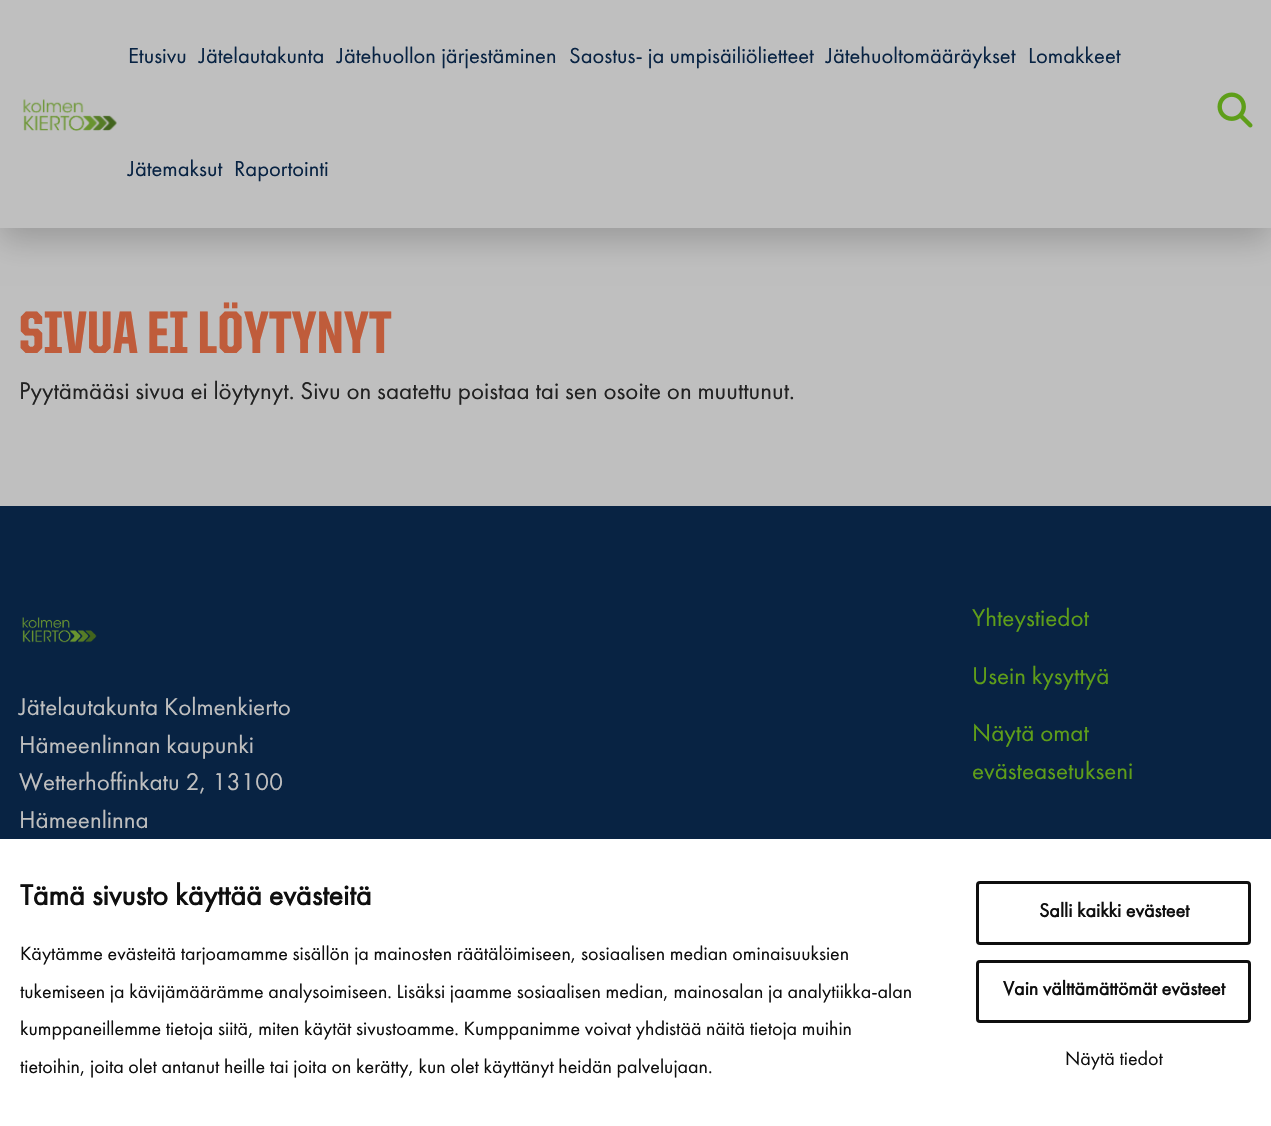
void draw(SkCanvas* canvas) {
    SkPaint paint;
    paint.setAntiAlias(true);
    auto face = [&](const char* family, int weight, float size, bool italic = false) {
        SkFontStyle style(weight, SkFontStyle::kNormal_Width,
            italic ? SkFontStyle::kItalic_Slant : SkFontStyle::kUpright_Slant);
        SkFont result(fontMgr->matchFamilyStyle(family, style), size);
        result.setSubpixel(true);
        return result;
    };
    auto write = [&](const char* s, float x, float y, const SkFont& font, SkColor color) {
        SkPaint ink(SkColor4f::FromColor(color));
        ink.setAntiAlias(true);
        canvas->drawString(s, x, y, font, ink);
    };
    auto block = [&](float x, float y, float w, float h, SkColor color) {
        SkPaint ink(SkColor4f::FromColor(color));
        ink.setAntiAlias(true);
        canvas->drawRect(SkRect::MakeXYWH(x, y, w, h), ink);
    };
    auto paste = [&](const char* path, float x, float y, float w, float h) {
        auto image = SkImages::DeferredFromEncodedData(SkData::MakeFromFileName(path));
        canvas->drawImageRect(image, SkRect::MakeXYWH(x, y, w, h), SkSamplingOptions());
    };
    canvas->clear(SkColorSetRGB(191, 191, 191));
    paint.setColor(SkColorSetARGB(51, 0, 0, 0));
    paint.setMaskFilter(SkMaskFilter::MakeBlur(kNormal_SkBlurStyle, 15.5f));
    canvas->drawRect(SkRect::MakeXYWH(0, -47, 1271, 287), paint);
    paint.setMaskFilter(nullptr);
    block(0, 0, 1271, 228, SkColorSetRGB(191, 191, 191));
    paste("pic1.png", 23, 99, 94, 32);
    auto kFont1 = face("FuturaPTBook", 400, 22.5f);
    write("Etusivu", 128, 63, kFont1, SkColorSetRGB(8, 35, 67));
    write("Jätelautakunta", 199, 63, kFont1, SkColorSetRGB(8, 35, 67));
    write("Jätehuollon järjestäminen", 337, 63, kFont1, SkColorSetRGB(8, 35, 67));
    write("Saostus- ja umpisäiliölietteet", 569, 63, kFont1, SkColorSetRGB(8, 35, 67));
    write("Jätehuoltomääräykset", 826, 63, kFont1, SkColorSetRGB(8, 35, 67));
    write("Lomakkeet", 1028, 63, kFont1, SkColorSetRGB(8, 35, 67));
    write("Jätemaksut", 128, 176, kFont1, SkColorSetRGB(8, 35, 67));
    write("Raportointi", 234, 176, kFont1, SkColorSetRGB(8, 35, 67));
    paste("pic2.png", 1217, 92, 36, 36);
    auto kFont2 = face("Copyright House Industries", 700, 60);
    write("SIVUA EI LÖYTYNYT", 19, 353, kFont2, SkColorSetRGB(191, 92, 59));
    auto kFont3 = face("FuturaPTBook", 400, 25);
    write("Pyytämääsi sivua ei löytynyt. Sivu on saatettu poistaa tai sen osoite on muuttunut.", 19, 399, kFont3, SkColorSetRGB(34, 34, 34));
    block(0, 506, 1271, 333, SkColorSetRGB(8, 35, 67));
    paste("pic3.png", 22, 617, 75, 26);
    write("Jätelautakunta Kolmenkierto", 19, 715, kFont3, SkColorSetRGB(191, 191, 191));
    write("Hämeenlinnan kaupunki", 19, 753, kFont3, SkColorSetRGB(191, 191, 191));
    write("Wetterhoffinkatu 2, 13100", 19, 790, kFont3, SkColorSetRGB(191, 191, 191));
    write("Hämeenlinna", 19, 828, kFont3, SkColorSetRGB(191, 191, 191));
    write("Yhteystiedot", 972, 626, kFont3, SkColorSetRGB(95, 158, 25));
    write("Usein kysyttyä", 972, 684, kFont3, SkColorSetRGB(95, 158, 25));
    write("Näytä omat", 972, 741, kFont3, SkColorSetRGB(95, 158, 25));
    write("evästeasetukseni", 972, 779, kFont3, SkColorSetRGB(95, 158, 25));
    block(0, 839, 1271, 287, SK_ColorWHITE);
    auto kFont4 = face("FuturaPTBook", 700, 30);
    write("Tämä sivusto käyttää evästeitä", 20, 905, kFont4, SkColorSetRGB(15, 15, 15));
    auto kFont5 = face("FuturaPTBook", 400, 20);
    write("Käytämme evästeitä tarjoamamme sisällön ja mainosten räätälöimiseen, sosiaalisen median ominaisuuksien", 20, 960, kFont5, SkColorSetRGB(15, 15, 15));
    write("tukemiseen ja kävijämäärämme analysoimiseen. Lisäksi jaamme sosiaalisen median, mainosalan ja analytiikka-alan", 20, 998, kFont5, SkColorSetRGB(15, 15, 15));
    write("kumppaneillemme tietoja siitä, miten käytät sivustoamme. Kumppanimme voivat yhdistää näitä tietoja muihin", 20, 1035, kFont5, SkColorSetRGB(15, 15, 15));
    write("tietoihin, joita olet antanut heille tai joita on kerätty, kun olet käyttänyt heidän palvelujaan.", 20, 1073, kFont5, SkColorSetRGB(15, 15, 15));
    paint.setStyle(SkPaint::kStroke_Style);
    paint.setStrokeWidth(3);
    paint.setColor(SkColorSetRGB(15, 15, 15));
    canvas->drawRoundRect(SkRect::MakeXYWH(977.5f, 882.5f, 272, 61), 2.5f, 2.5f, paint);
    auto kFont6 = face("FuturaPTBook", 700, 20);
    write("Salli kaikki evästeet", 1039, 917, kFont6, SkColorSetRGB(15, 15, 15));
    canvas->drawRoundRect(SkRect::MakeXYWH(977.5f, 961.5f, 272, 60), 2.5f, 2.5f, paint);
    write("Vain välttämättömät evästeet", 1003, 995, kFont6, SkColorSetRGB(15, 15, 15));
    write("Näytä tiedot", 1065, 1065, kFont5, SkColorSetRGB(15, 15, 15));
}
